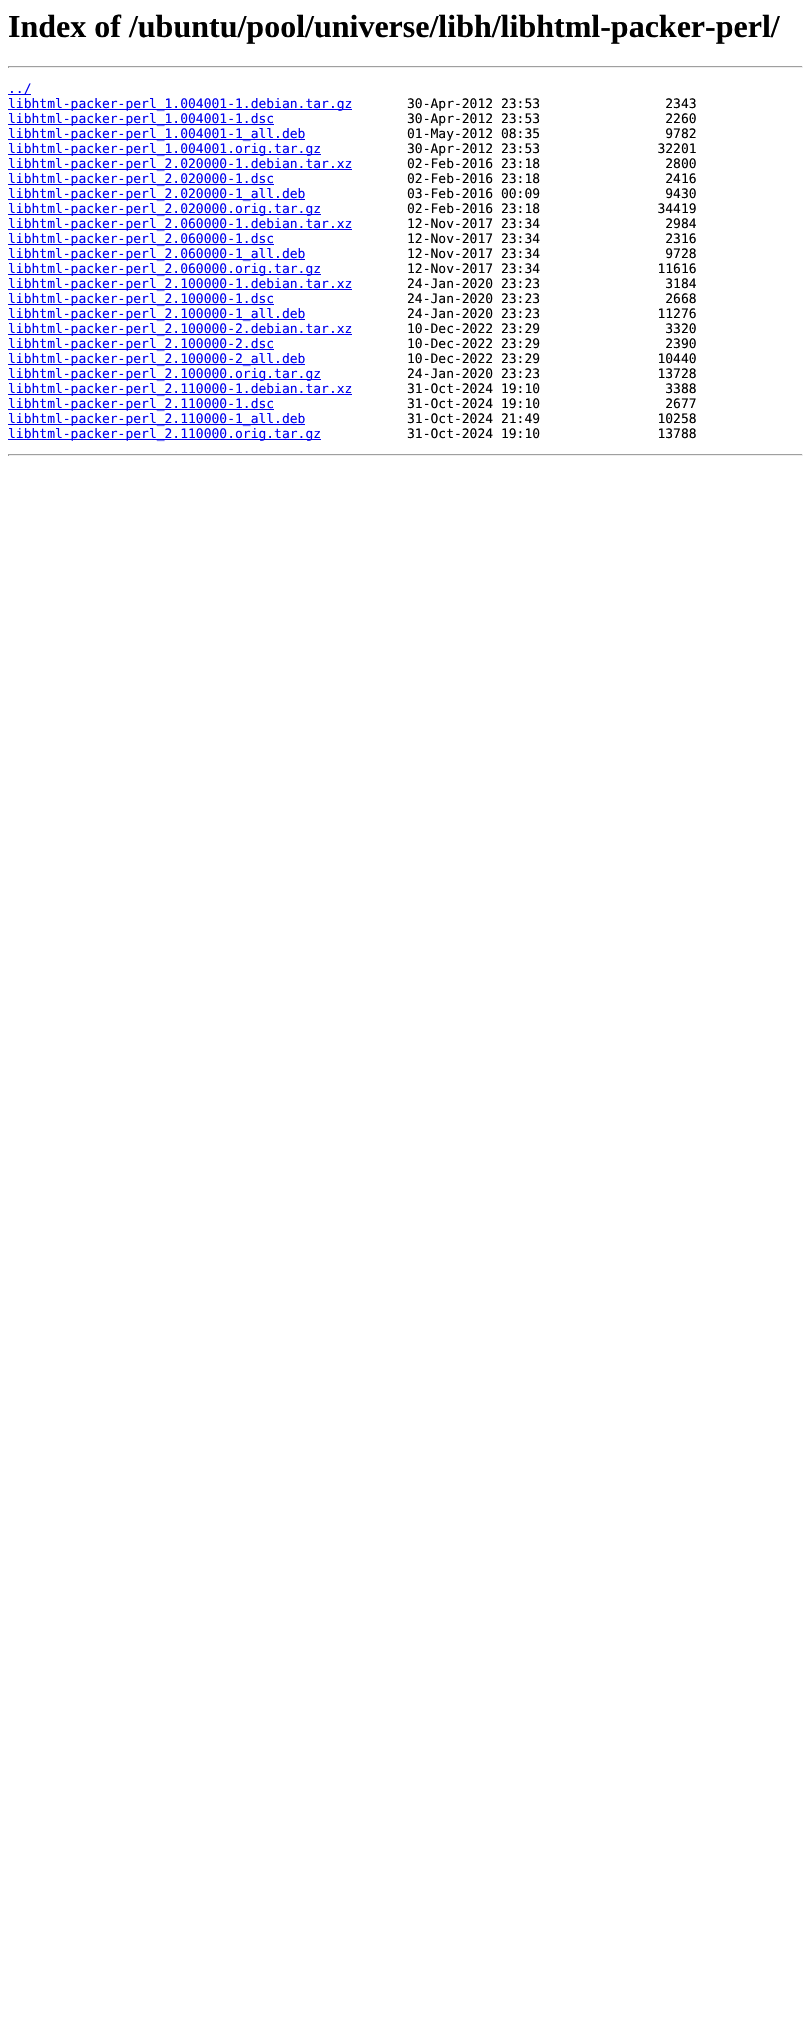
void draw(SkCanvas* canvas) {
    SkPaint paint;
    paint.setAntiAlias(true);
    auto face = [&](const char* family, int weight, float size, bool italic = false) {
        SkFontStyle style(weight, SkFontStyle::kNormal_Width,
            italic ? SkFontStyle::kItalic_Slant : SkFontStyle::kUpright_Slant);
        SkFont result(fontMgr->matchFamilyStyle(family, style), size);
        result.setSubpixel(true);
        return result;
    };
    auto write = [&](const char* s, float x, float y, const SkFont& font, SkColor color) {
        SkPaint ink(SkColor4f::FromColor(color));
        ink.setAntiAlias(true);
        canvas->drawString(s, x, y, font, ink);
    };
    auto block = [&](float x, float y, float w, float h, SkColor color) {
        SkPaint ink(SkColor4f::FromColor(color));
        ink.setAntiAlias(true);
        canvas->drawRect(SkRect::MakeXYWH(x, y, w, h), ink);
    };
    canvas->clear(SK_ColorWHITE);
    auto kFont1 = face("Liberation Serif", 700, 32);
    write("Index of /ubuntu/pool/universe/libh/libhtml-packer-perl/", 8, 37, kFont1, SK_ColorBLACK);
    block(8, 66, 795, 1, SkColorSetRGB(159, 159, 159));
    block(802, 66, 1, 2, SkColorSetRGB(238, 238, 238));
    block(8, 67, 795, 1, SkColorSetRGB(238, 238, 238));
    block(8, 66, 1, 2, SkColorSetRGB(159, 159, 159));
    block(8, 94, 23, 1, SkColorSetRGB(0, 0, 238));
    auto kFont2 = face("DejaVu Sans Mono", 400, 13);
    write("../", 8, 93, kFont2, SkColorSetRGB(0, 0, 238));
    block(8, 109, 344, 1, SkColorSetRGB(0, 0, 238));
    write("libhtml-packer-perl_1.004001-1.debian.tar.gz", 8, 108, kFont2, SkColorSetRGB(0, 0, 238));
    write("30-Apr-2012 23:53                2343", 407, 108, kFont2, SK_ColorBLACK);
    block(8, 124, 266, 1, SkColorSetRGB(0, 0, 238));
    write("libhtml-packer-perl_1.004001-1.dsc", 8, 123, kFont2, SkColorSetRGB(0, 0, 238));
    write("30-Apr-2012 23:53                2260", 407, 123, kFont2, SK_ColorBLACK);
    block(8, 139, 297, 1, SkColorSetRGB(0, 0, 238));
    write("libhtml-packer-perl_1.004001-1_all.deb", 8, 138, kFont2, SkColorSetRGB(0, 0, 238));
    write("01-May-2012 08:35                9782", 407, 138, kFont2, SK_ColorBLACK);
    block(8, 154, 313, 1, SkColorSetRGB(0, 0, 238));
    write("libhtml-packer-perl_1.004001.orig.tar.gz", 8, 153, kFont2, SkColorSetRGB(0, 0, 238));
    write("30-Apr-2012 23:53               32201", 407, 153, kFont2, SK_ColorBLACK);
    block(8, 169, 344, 1, SkColorSetRGB(0, 0, 238));
    write("libhtml-packer-perl_2.020000-1.debian.tar.xz", 8, 168, kFont2, SkColorSetRGB(0, 0, 238));
    write("02-Feb-2016 23:18                2800", 407, 168, kFont2, SK_ColorBLACK);
    block(8, 184, 266, 1, SkColorSetRGB(0, 0, 238));
    write("libhtml-packer-perl_2.020000-1.dsc", 8, 183, kFont2, SkColorSetRGB(0, 0, 238));
    write("02-Feb-2016 23:18                2416", 407, 183, kFont2, SK_ColorBLACK);
    block(8, 199, 297, 1, SkColorSetRGB(0, 0, 238));
    write("libhtml-packer-perl_2.020000-1_all.deb", 8, 198, kFont2, SkColorSetRGB(0, 0, 238));
    write("03-Feb-2016 00:09                9430", 407, 198, kFont2, SK_ColorBLACK);
    block(8, 214, 313, 1, SkColorSetRGB(0, 0, 238));
    write("libhtml-packer-perl_2.020000.orig.tar.gz", 8, 213, kFont2, SkColorSetRGB(0, 0, 238));
    write("02-Feb-2016 23:18               34419", 407, 213, kFont2, SK_ColorBLACK);
    block(8, 229, 344, 1, SkColorSetRGB(0, 0, 238));
    write("libhtml-packer-perl_2.060000-1.debian.tar.xz", 8, 228, kFont2, SkColorSetRGB(0, 0, 238));
    write("12-Nov-2017 23:34                2984", 407, 228, kFont2, SK_ColorBLACK);
    block(8, 244, 266, 1, SkColorSetRGB(0, 0, 238));
    write("libhtml-packer-perl_2.060000-1.dsc", 8, 243, kFont2, SkColorSetRGB(0, 0, 238));
    write("12-Nov-2017 23:34                2316", 407, 243, kFont2, SK_ColorBLACK);
    block(8, 259, 297, 1, SkColorSetRGB(0, 0, 238));
    write("libhtml-packer-perl_2.060000-1_all.deb", 8, 258, kFont2, SkColorSetRGB(0, 0, 238));
    write("12-Nov-2017 23:34                9728", 407, 258, kFont2, SK_ColorBLACK);
    block(8, 274, 313, 1, SkColorSetRGB(0, 0, 238));
    write("libhtml-packer-perl_2.060000.orig.tar.gz", 8, 273, kFont2, SkColorSetRGB(0, 0, 238));
    write("12-Nov-2017 23:34               11616", 407, 273, kFont2, SK_ColorBLACK);
    block(8, 289, 344, 1, SkColorSetRGB(0, 0, 238));
    write("libhtml-packer-perl_2.100000-1.debian.tar.xz", 8, 288, kFont2, SkColorSetRGB(0, 0, 238));
    write("24-Jan-2020 23:23                3184", 407, 288, kFont2, SK_ColorBLACK);
    block(8, 304, 266, 1, SkColorSetRGB(0, 0, 238));
    write("libhtml-packer-perl_2.100000-1.dsc", 8, 303, kFont2, SkColorSetRGB(0, 0, 238));
    write("24-Jan-2020 23:23                2668", 407, 303, kFont2, SK_ColorBLACK);
    block(8, 319, 297, 1, SkColorSetRGB(0, 0, 238));
    write("libhtml-packer-perl_2.100000-1_all.deb", 8, 318, kFont2, SkColorSetRGB(0, 0, 238));
    write("24-Jan-2020 23:23               11276", 407, 318, kFont2, SK_ColorBLACK);
    block(8, 334, 344, 1, SkColorSetRGB(0, 0, 238));
    write("libhtml-packer-perl_2.100000-2.debian.tar.xz", 8, 333, kFont2, SkColorSetRGB(0, 0, 238));
    write("10-Dec-2022 23:29                3320", 407, 333, kFont2, SK_ColorBLACK);
    block(8, 349, 266, 1, SkColorSetRGB(0, 0, 238));
    write("libhtml-packer-perl_2.100000-2.dsc", 8, 348, kFont2, SkColorSetRGB(0, 0, 238));
    write("10-Dec-2022 23:29                2390", 407, 348, kFont2, SK_ColorBLACK);
    block(8, 364, 297, 1, SkColorSetRGB(0, 0, 238));
    write("libhtml-packer-perl_2.100000-2_all.deb", 8, 363, kFont2, SkColorSetRGB(0, 0, 238));
    write("10-Dec-2022 23:29               10440", 407, 363, kFont2, SK_ColorBLACK);
    block(8, 379, 313, 1, SkColorSetRGB(0, 0, 238));
    write("libhtml-packer-perl_2.100000.orig.tar.gz", 8, 378, kFont2, SkColorSetRGB(0, 0, 238));
    write("24-Jan-2020 23:23               13728", 407, 378, kFont2, SK_ColorBLACK);
    block(8, 394, 344, 1, SkColorSetRGB(0, 0, 238));
    write("libhtml-packer-perl_2.110000-1.debian.tar.xz", 8, 393, kFont2, SkColorSetRGB(0, 0, 238));
    write("31-Oct-2024 19:10                3388", 407, 393, kFont2, SK_ColorBLACK);
    block(8, 409, 266, 1, SkColorSetRGB(0, 0, 238));
    write("libhtml-packer-perl_2.110000-1.dsc", 8, 408, kFont2, SkColorSetRGB(0, 0, 238));
    write("31-Oct-2024 19:10                2677", 407, 408, kFont2, SK_ColorBLACK);
    block(8, 424, 297, 1, SkColorSetRGB(0, 0, 238));
    write("libhtml-packer-perl_2.110000-1_all.deb", 8, 423, kFont2, SkColorSetRGB(0, 0, 238));
    write("31-Oct-2024 21:49               10258", 407, 423, kFont2, SK_ColorBLACK);
    block(8, 439, 313, 1, SkColorSetRGB(0, 0, 238));
    write("libhtml-packer-perl_2.110000.orig.tar.gz", 8, 438, kFont2, SkColorSetRGB(0, 0, 238));
    write("31-Oct-2024 19:10               13788", 407, 438, kFont2, SK_ColorBLACK);
    block(8, 454, 795, 1, SkColorSetRGB(159, 159, 159));
    block(802, 454, 1, 2, SkColorSetRGB(238, 238, 238));
    block(8, 455, 795, 1, SkColorSetRGB(238, 238, 238));
    block(8, 454, 1, 2, SkColorSetRGB(159, 159, 159));
}
